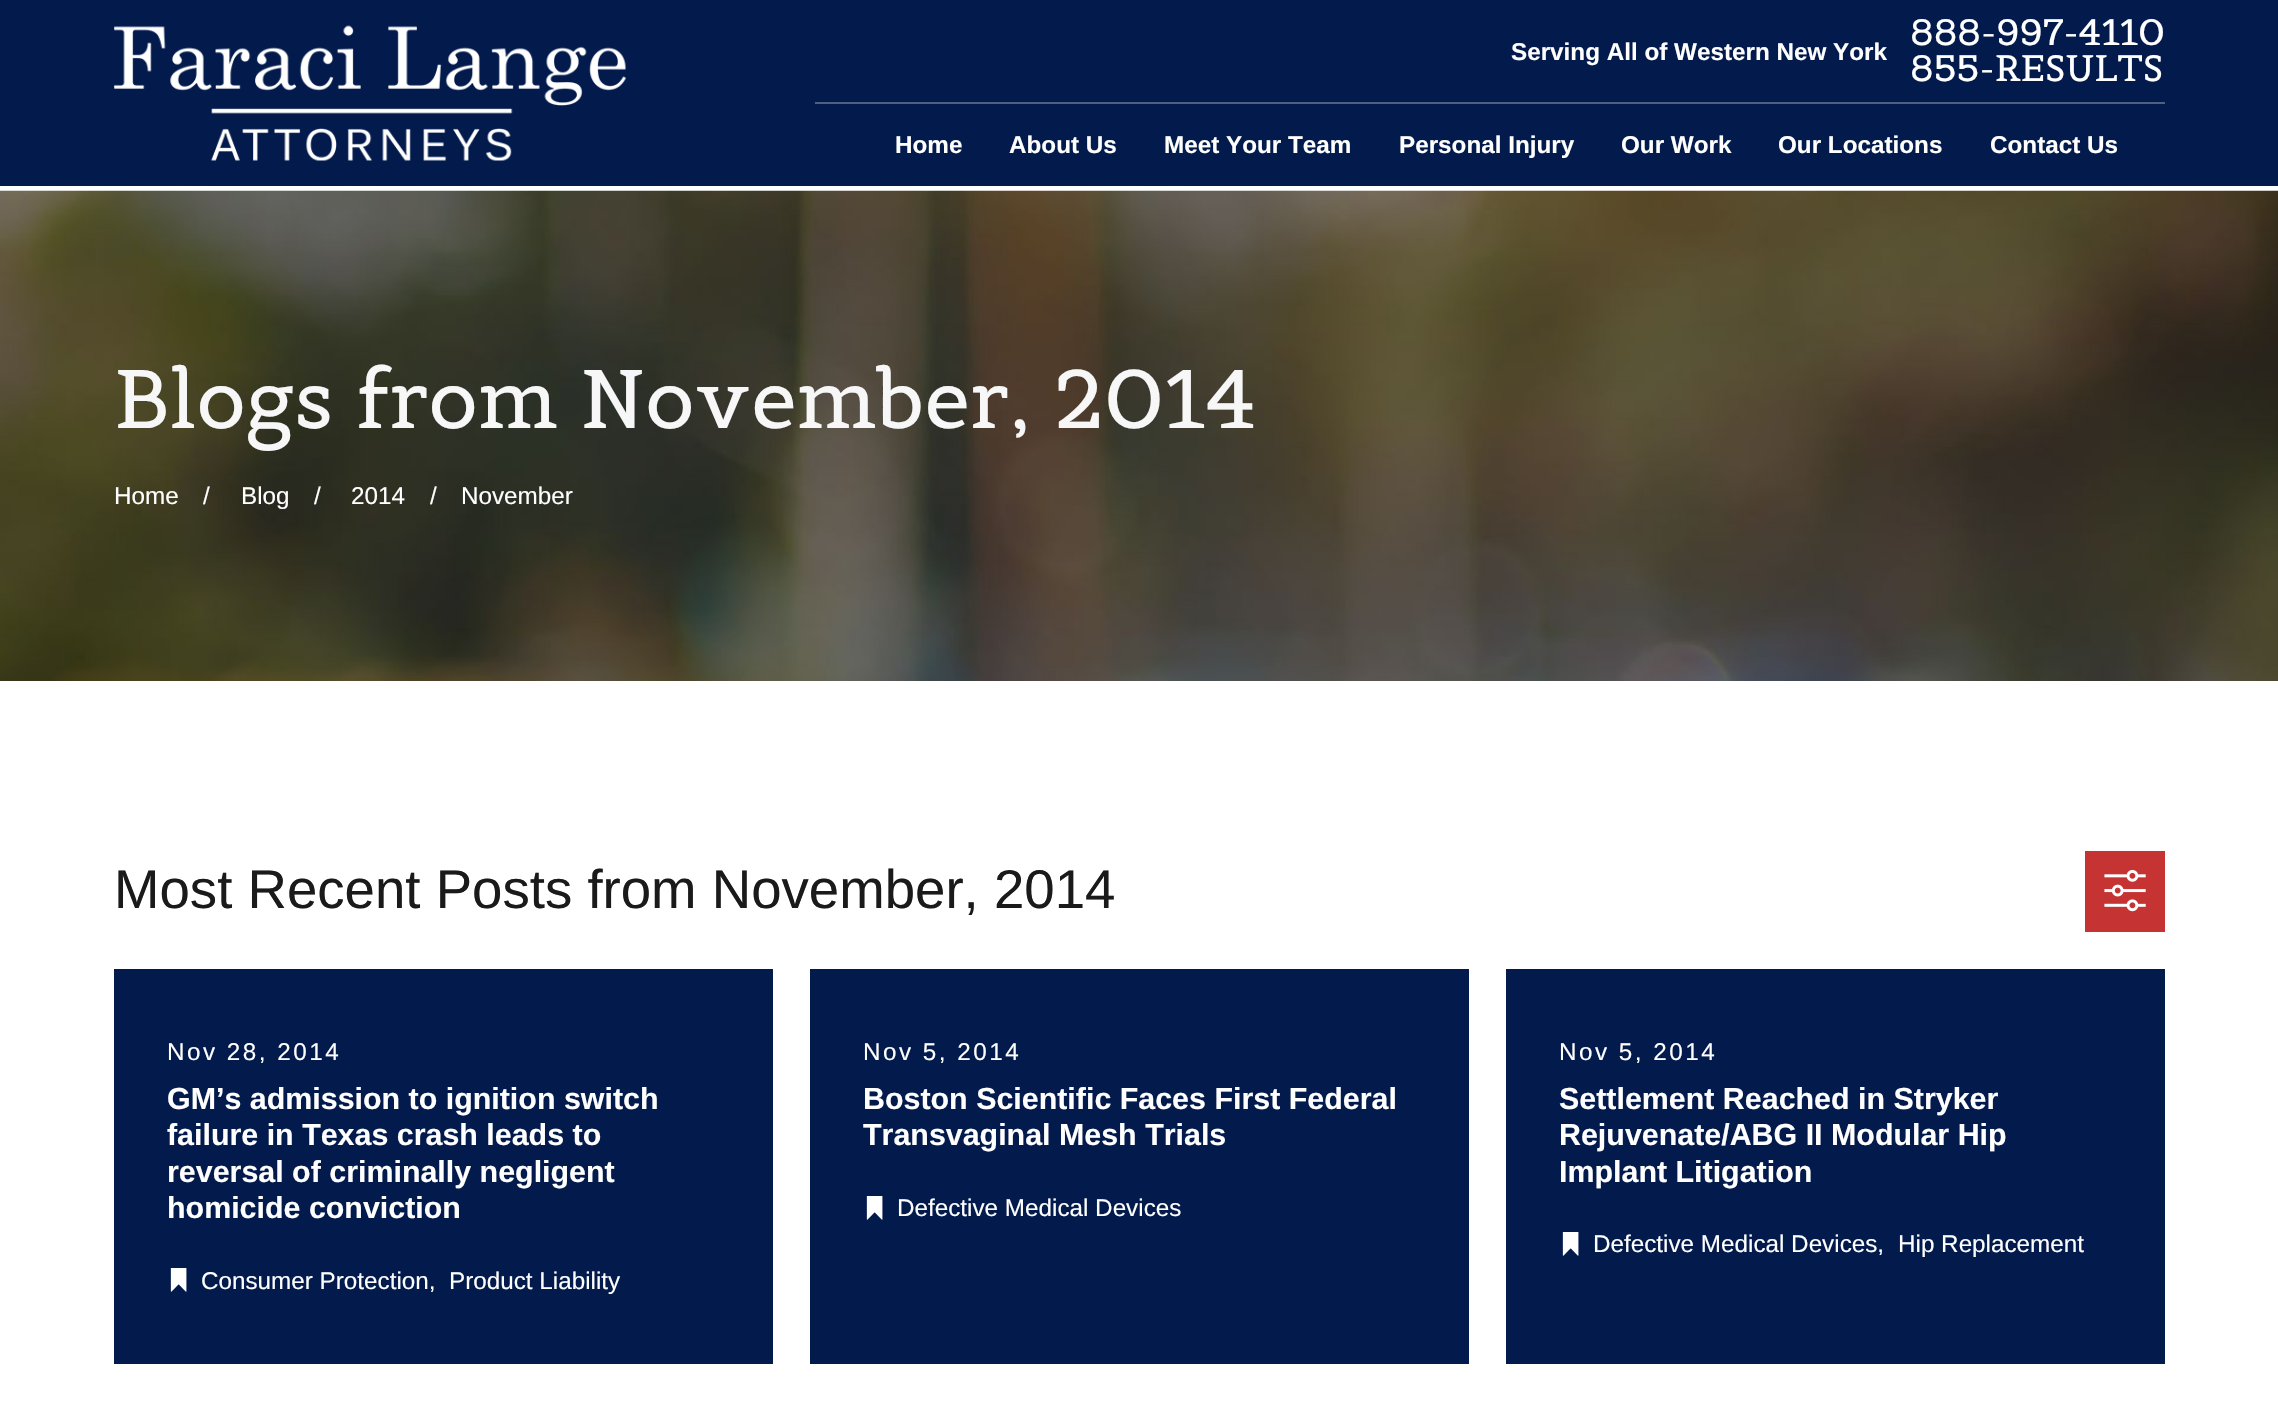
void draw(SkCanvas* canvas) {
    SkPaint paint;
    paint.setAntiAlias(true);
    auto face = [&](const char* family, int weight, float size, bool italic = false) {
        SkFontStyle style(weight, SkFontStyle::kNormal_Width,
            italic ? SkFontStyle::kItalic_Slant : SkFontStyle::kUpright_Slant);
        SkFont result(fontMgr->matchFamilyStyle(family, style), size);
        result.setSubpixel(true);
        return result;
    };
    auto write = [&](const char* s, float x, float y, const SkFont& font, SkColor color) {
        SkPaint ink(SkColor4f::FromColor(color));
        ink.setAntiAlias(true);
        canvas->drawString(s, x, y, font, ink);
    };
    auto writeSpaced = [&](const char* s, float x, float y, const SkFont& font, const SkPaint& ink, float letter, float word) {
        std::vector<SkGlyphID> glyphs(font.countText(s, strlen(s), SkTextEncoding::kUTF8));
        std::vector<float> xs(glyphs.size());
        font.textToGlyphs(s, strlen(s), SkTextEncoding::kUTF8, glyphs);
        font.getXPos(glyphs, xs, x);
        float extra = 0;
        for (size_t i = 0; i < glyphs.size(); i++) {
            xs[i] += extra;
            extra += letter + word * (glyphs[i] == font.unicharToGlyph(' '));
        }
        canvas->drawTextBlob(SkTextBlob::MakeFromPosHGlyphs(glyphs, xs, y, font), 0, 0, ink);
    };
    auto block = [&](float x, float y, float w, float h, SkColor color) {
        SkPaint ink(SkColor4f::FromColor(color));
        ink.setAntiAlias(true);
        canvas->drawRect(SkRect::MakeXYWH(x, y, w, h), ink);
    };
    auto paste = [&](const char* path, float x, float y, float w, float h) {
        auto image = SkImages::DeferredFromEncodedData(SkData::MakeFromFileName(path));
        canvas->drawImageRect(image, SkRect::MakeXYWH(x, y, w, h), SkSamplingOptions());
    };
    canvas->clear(SK_ColorWHITE);
    block(0, 0, 2278, 186, SkColorSetRGB(3, 27, 76));
    paste("pic1.png", 114, 25, 512, 136);
    block(815, 102, 1350, 2, SkColorSetRGB(79, 95, 130));
    auto kFont1 = face("Arimo", 700, 24.25f);
    write("Serving All of Western New York", 1511, 60, kFont1, SK_ColorWHITE);
    auto kFont2 = face("Belgrano", 400, 36.5f);
    write("888-997-4110", 1910, 45, kFont2, SK_ColorWHITE);
    write("855-RESULTS", 1910, 81, kFont2, SK_ColorWHITE);
    write("Home", 895, 153, kFont1, SK_ColorWHITE);
    write("About Us", 1009, 153, kFont1, SK_ColorWHITE);
    write("Meet Your Team", 1164, 153, kFont1, SK_ColorWHITE);
    write("Personal Injury", 1399, 153, kFont1, SK_ColorWHITE);
    write("Our Work", 1621, 153, kFont1, SK_ColorWHITE);
    write("Our Locations", 1778, 153, kFont1, SK_ColorWHITE);
    write("Contact Us", 1990, 153, kFont1, SK_ColorWHITE);
    paste("pic2.png", 0, 190, 2278, 491);
    auto kFont3 = face("Belgrano", 400, 82);
    write("Blogs from November, 2014", 114, 428, kFont3, SkColorSetRGB(247, 247, 247));
    auto kFont4 = face("Arimo", 400, 24.25f);
    write("Home", 114, 504, kFont4, SK_ColorWHITE);
    write("/", 203, 504, kFont4, SK_ColorWHITE);
    write("Blog", 241, 504, kFont4, SK_ColorWHITE);
    write("/", 314, 504, kFont4, SK_ColorWHITE);
    write("2014", 351, 504, kFont4, SK_ColorWHITE);
    write("/", 430, 504, kFont4, SK_ColorWHITE);
    write("November", 461, 504, kFont4, SK_ColorWHITE);
    auto kFont5 = face("Arimo", 400, 54.6f);
    write("Most Recent Posts from November, 2014", 114, 908, kFont5, SkColorSetRGB(26, 26, 26));
    block(2085, 851, 80, 81, SkColorSetRGB(198, 51, 51));
    paste("pic3.png", 2104, 869, 42, 43);
    block(114, 969, 659, 395, SkColorSetRGB(3, 27, 76));
    paint.setColor(SK_ColorWHITE);
    writeSpaced("Nov 28, 2014", 167, 1060, kFont4, paint, 2.5f, 0);
    auto kFont6 = face("Arimo", 700, 30.4f);
    write("GM’s admission to ignition switch", 167, 1109, kFont6, SK_ColorWHITE);
    write("failure in Texas crash leads to", 167, 1145, kFont6, SK_ColorWHITE);
    write("reversal of criminally negligent", 167, 1182, kFont6, SK_ColorWHITE);
    write("homicide conviction", 167, 1218, kFont6, SK_ColorWHITE);
    paste("pic4.png", 170, 1268, 17, 24);
    write("Consumer Protection,", 201, 1289, kFont4, SK_ColorWHITE);
    write("Product Liability", 449, 1289, kFont4, SK_ColorWHITE);
    block(810, 969, 659, 395, SkColorSetRGB(3, 27, 76));
    writeSpaced("Nov 5, 2014", 863, 1060, kFont4, paint, 2.5f, 0);
    write("Boston Scientific Faces First Federal", 863, 1109, kFont6, SK_ColorWHITE);
    write("Transvaginal Mesh Trials", 863, 1145, kFont6, SK_ColorWHITE);
    paste("pic4.png", 866, 1196, 17, 24);
    write("Defective Medical Devices", 897, 1216, kFont4, SK_ColorWHITE);
    block(1506, 969, 659, 395, SkColorSetRGB(3, 27, 76));
    writeSpaced("Nov 5, 2014", 1559, 1060, kFont4, paint, 2.5f, 0);
    write("Settlement Reached in Stryker", 1559, 1109, kFont6, SK_ColorWHITE);
    write("Rejuvenate/ABG II Modular Hip", 1559, 1145, kFont6, SK_ColorWHITE);
    write("Implant Litigation", 1559, 1182, kFont6, SK_ColorWHITE);
    paste("pic4.png", 1562, 1232, 17, 24);
    write("Defective Medical Devices,", 1593, 1252, kFont4, SK_ColorWHITE);
    write("Hip Replacement", 1898, 1252, kFont4, SK_ColorWHITE);
}
